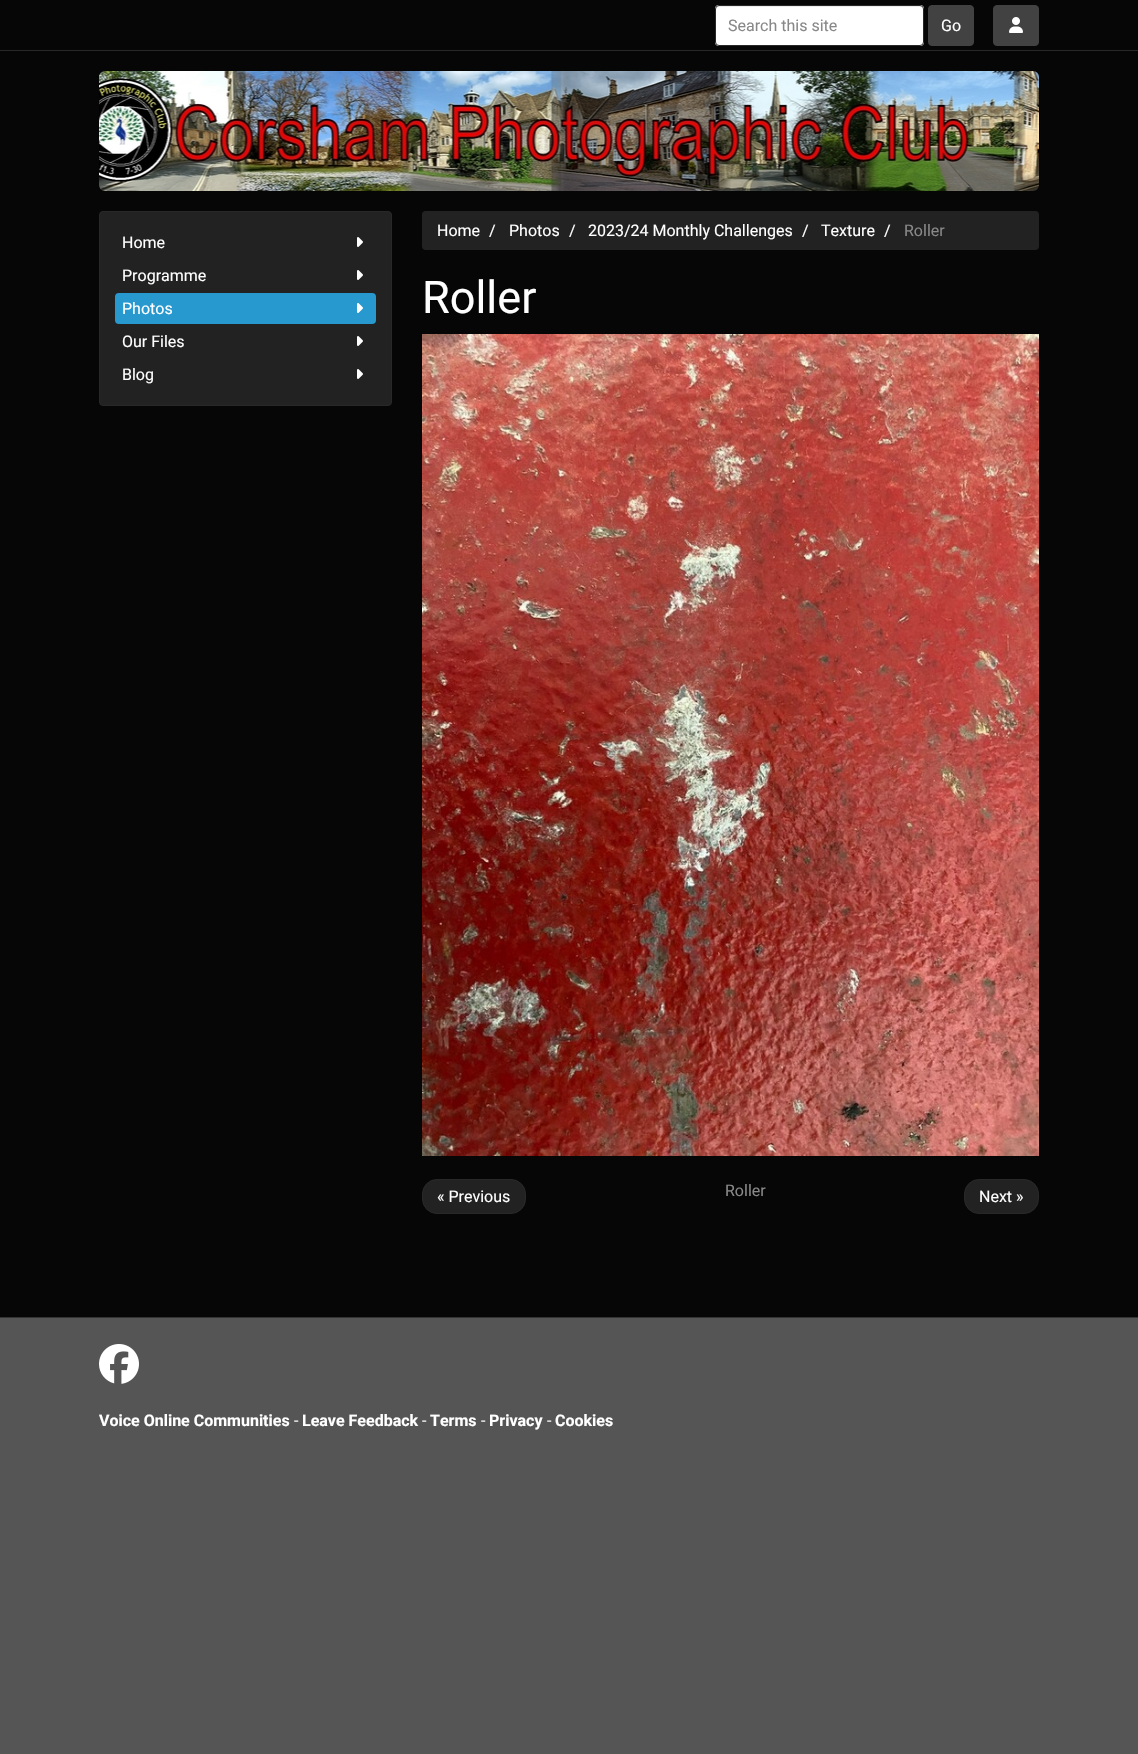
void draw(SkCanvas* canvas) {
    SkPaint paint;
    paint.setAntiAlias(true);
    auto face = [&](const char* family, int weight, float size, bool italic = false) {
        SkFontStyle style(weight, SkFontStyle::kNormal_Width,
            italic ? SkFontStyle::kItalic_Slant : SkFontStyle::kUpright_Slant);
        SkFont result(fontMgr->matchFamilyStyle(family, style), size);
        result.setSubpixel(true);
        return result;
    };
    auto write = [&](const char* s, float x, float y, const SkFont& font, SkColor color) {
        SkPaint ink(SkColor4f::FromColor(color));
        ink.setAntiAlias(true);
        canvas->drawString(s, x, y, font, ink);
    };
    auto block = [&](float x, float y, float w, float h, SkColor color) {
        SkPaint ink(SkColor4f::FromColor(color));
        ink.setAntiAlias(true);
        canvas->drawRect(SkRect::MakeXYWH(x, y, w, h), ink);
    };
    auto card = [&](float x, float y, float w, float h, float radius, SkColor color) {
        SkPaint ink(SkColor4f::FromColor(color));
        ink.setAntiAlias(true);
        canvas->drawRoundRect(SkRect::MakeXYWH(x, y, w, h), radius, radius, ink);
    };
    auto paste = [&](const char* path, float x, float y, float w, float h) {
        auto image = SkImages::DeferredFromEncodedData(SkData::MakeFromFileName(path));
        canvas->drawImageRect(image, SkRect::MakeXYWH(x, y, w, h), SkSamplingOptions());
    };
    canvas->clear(SkColorSetRGB(6, 6, 6));
    block(0, 50, 1138, 1, SkColorSetRGB(40, 40, 40));
    card(715, 5, 209, 41, 4, SK_ColorWHITE);
    paint.setColor(SkColorSetRGB(236, 236, 236));
    canvas->drawPath(SkPathBuilder().moveTo(719, 7).lineTo(920, 7).cubicTo(922, 7, 923, 8, 923, 10).cubicTo(923, 8, 922, 6, 920, 6).lineTo(718, 6).cubicTo(716, 7, 716, 8, 716, 10).cubicTo(716, 8, 717, 7, 719, 7).close().detach(), paint);
    paint.setStyle(SkPaint::kStroke_Style);
    paint.setStrokeWidth(1);
    paint.setColor(SkColorSetRGB(40, 40, 40));
    canvas->drawRoundRect(SkRect::MakeXYWH(715.5f, 5.5f, 208, 40), 3.5f, 3.5f, paint);
    auto kFont1 = face("Roboto", 400, 16);
    write("Search this site", 728, 31, kFont1, SkColorSetRGB(136, 136, 136));
    paint.setStyle(SkPaint::kFill_Style);
    paint.setColor(SkColorSetRGB(66, 66, 66));
    canvas->drawRoundRect(SkRect::MakeXYWH(928.5f, 5.5f, 45, 40), 3.5f, 3.5f, paint);
    paint.setStyle(SkPaint::kStroke_Style);
    canvas->drawRoundRect(SkRect::MakeXYWH(928.5f, 5.5f, 45, 40), 3.5f, 3.5f, paint);
    write("Go", 941, 31, kFont1, SK_ColorWHITE);
    paint.setStyle(SkPaint::kFill_Style);
    canvas->drawRoundRect(SkRect::MakeXYWH(993.5f, 5.5f, 45, 40), 3.5f, 3.5f, paint);
    paint.setStyle(SkPaint::kStroke_Style);
    canvas->drawRoundRect(SkRect::MakeXYWH(993.5f, 5.5f, 45, 40), 3.5f, 3.5f, paint);
    paste("pic1.png", 1009, 17, 14, 16);
    paste("pic2.png", 99, 71, 940, 120);
    paint.setStyle(SkPaint::kFill_Style);
    paint.setColor(SkColorSetRGB(34, 34, 34));
    canvas->drawRoundRect(SkRect::MakeXYWH(99.5f, 211.5f, 292, 194), 3.5f, 3.5f, paint);
    paint.setStyle(SkPaint::kStroke_Style);
    paint.setColor(SkColorSetRGB(40, 40, 40));
    canvas->drawRoundRect(SkRect::MakeXYWH(99.5f, 211.5f, 292, 194), 3.5f, 3.5f, paint);
    write("Home", 122, 248, kFont1, SK_ColorWHITE);
    paste("pic3.png", 357, 237, 6, 10);
    write("Programme", 122, 281, kFont1, SK_ColorWHITE);
    paste("pic3.png", 357, 270, 6, 10);
    card(115, 293, 261, 31, 4, SkColorSetRGB(39, 153, 206));
    write("Photos", 122, 314, kFont1, SK_ColorWHITE);
    paste("pic4.png", 357, 303, 6, 10);
    write("Our Files", 122, 347, kFont1, SK_ColorWHITE);
    paste("pic3.png", 357, 336, 6, 10);
    write("Blog", 122, 380, kFont1, SK_ColorWHITE);
    paste("pic3.png", 357, 369, 6, 10);
    card(422, 211, 617, 39, 4, SkColorSetRGB(34, 34, 34));
    write("Home", 437, 236, kFont1, SK_ColorWHITE);
    write("/", 489, 236, kFont1, SK_ColorWHITE);
    write("Photos", 509, 236, kFont1, SK_ColorWHITE);
    write("/", 569, 236, kFont1, SK_ColorWHITE);
    write("2023/24 Monthly Challenges", 588, 236, kFont1, SK_ColorWHITE);
    write("/", 802, 236, kFont1, SK_ColorWHITE);
    write("Texture", 821, 236, kFont1, SK_ColorWHITE);
    write("/", 884, 236, kFont1, SK_ColorWHITE);
    write("Roller", 904, 236, kFont1, SkColorSetRGB(136, 136, 136));
    auto kFont2 = face("Roboto", 400, 45);
    write("Roller", 422, 313, kFont2, SK_ColorWHITE);
    paste("pic5.png", 422, 334, 617, 822);
    paint.setStyle(SkPaint::kFill_Style);
    paint.setColor(SkColorSetRGB(34, 34, 34));
    canvas->drawRoundRect(SkRect::MakeXYWH(422.5f, 1179.5f, 103, 34), 14.5f, 14.5f, paint);
    paint.setStyle(SkPaint::kStroke_Style);
    paint.setColor(SkColorSetRGB(40, 40, 40));
    canvas->drawRoundRect(SkRect::MakeXYWH(422.5f, 1179.5f, 103, 34), 14.5f, 14.5f, paint);
    write("« Previous", 437, 1202, kFont1, SK_ColorWHITE);
    write("Roller", 725, 1196, kFont1, SkColorSetRGB(136, 136, 136));
    paint.setStyle(SkPaint::kFill_Style);
    paint.setColor(SkColorSetRGB(34, 34, 34));
    canvas->drawRoundRect(SkRect::MakeXYWH(964.5f, 1179.5f, 74, 34), 14.5f, 14.5f, paint);
    paint.setStyle(SkPaint::kStroke_Style);
    paint.setColor(SkColorSetRGB(40, 40, 40));
    canvas->drawRoundRect(SkRect::MakeXYWH(964.5f, 1179.5f, 74, 34), 14.5f, 14.5f, paint);
    write("Next »", 979, 1202, kFont1, SK_ColorWHITE);
    paint.setStyle(SkPaint::kFill_Style);
    paint.setColor(SkColorSetRGB(85, 85, 85));
    canvas->drawPath(SkPathBuilder().moveTo(-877, 1317).lineTo(-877, 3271).lineTo(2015, 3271).lineTo(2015, 1317).lineTo(1138, 1317).lineTo(1138, 1517).lineTo(0, 1517).lineTo(0, 1317).close().detach(), paint);
    block(0, 1318, 1138, 199, SkColorSetRGB(85, 85, 85));
    block(0, 1317, 1138, 1, SkColorSetRGB(51, 51, 51));
    paste("pic6.png", 99, 1344, 40, 40);
    auto kFont3 = face("Roboto", 700, 16);
    write("Voice Online Communities", 99, 1426, kFont3, SK_ColorWHITE);
    write("-", 294, 1426, kFont1, SkColorSetRGB(238, 238, 238));
    write("Leave Feedback", 302, 1426, kFont3, SK_ColorWHITE);
    write("-", 422, 1426, kFont1, SkColorSetRGB(238, 238, 238));
    write("Terms", 430, 1426, kFont3, SK_ColorWHITE);
    write("-", 481, 1426, kFont1, SkColorSetRGB(238, 238, 238));
    write("Privacy", 489, 1426, kFont3, SK_ColorWHITE);
    write("-", 547, 1426, kFont1, SkColorSetRGB(238, 238, 238));
    write("Cookies", 555, 1426, kFont3, SK_ColorWHITE);
}
